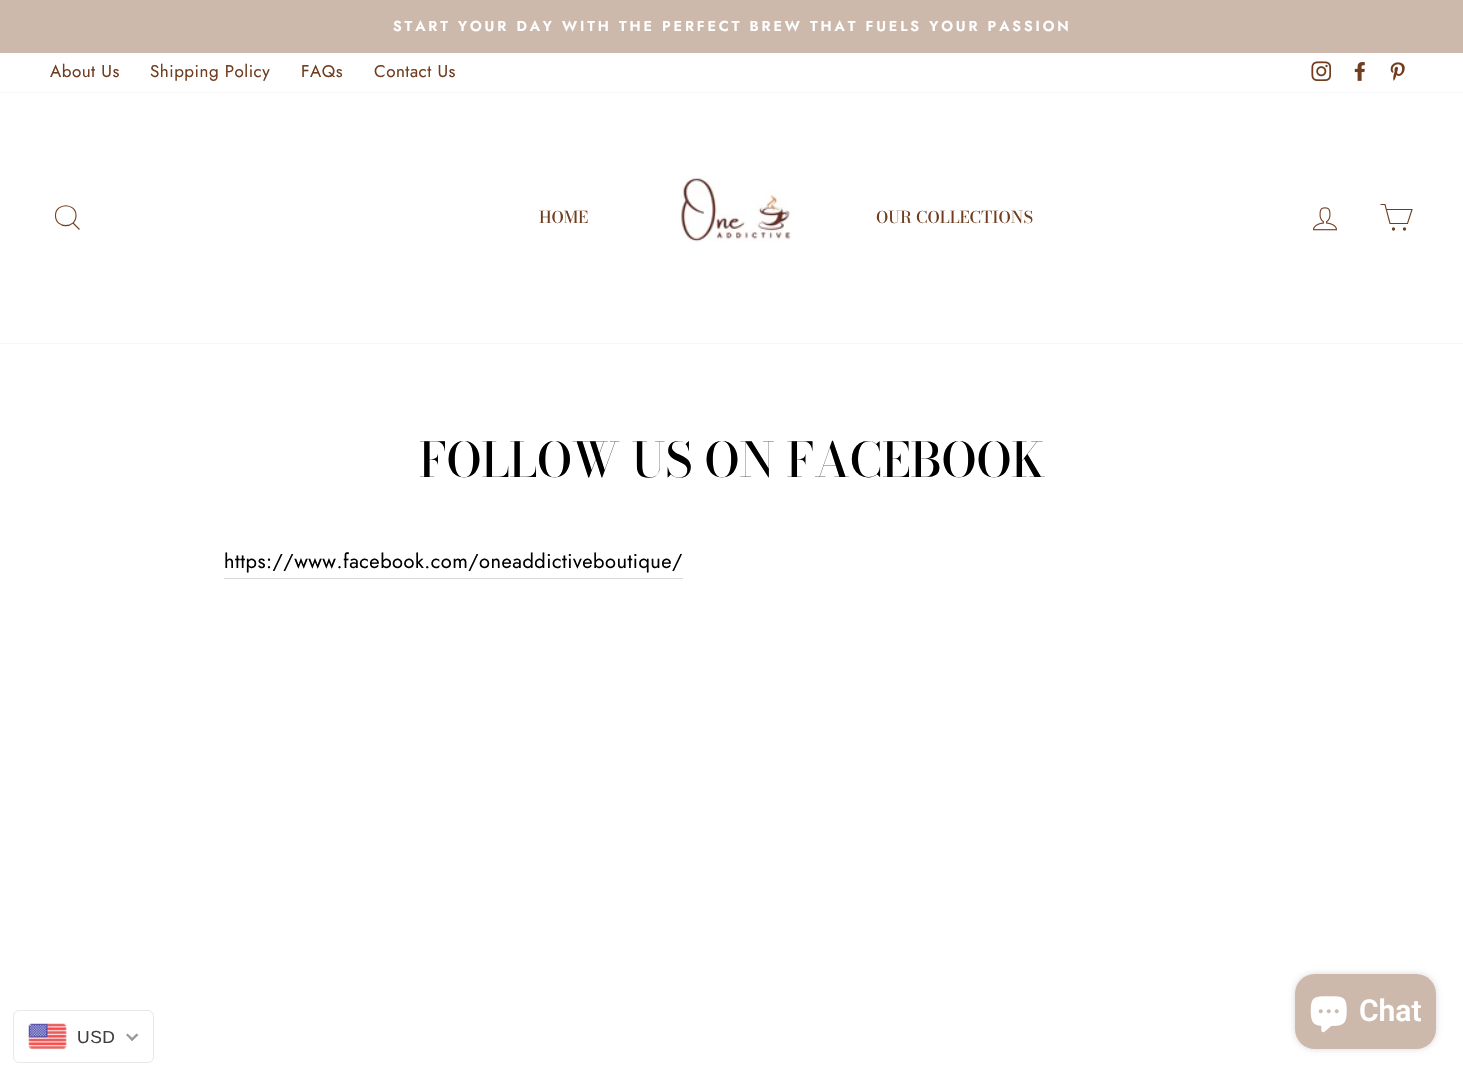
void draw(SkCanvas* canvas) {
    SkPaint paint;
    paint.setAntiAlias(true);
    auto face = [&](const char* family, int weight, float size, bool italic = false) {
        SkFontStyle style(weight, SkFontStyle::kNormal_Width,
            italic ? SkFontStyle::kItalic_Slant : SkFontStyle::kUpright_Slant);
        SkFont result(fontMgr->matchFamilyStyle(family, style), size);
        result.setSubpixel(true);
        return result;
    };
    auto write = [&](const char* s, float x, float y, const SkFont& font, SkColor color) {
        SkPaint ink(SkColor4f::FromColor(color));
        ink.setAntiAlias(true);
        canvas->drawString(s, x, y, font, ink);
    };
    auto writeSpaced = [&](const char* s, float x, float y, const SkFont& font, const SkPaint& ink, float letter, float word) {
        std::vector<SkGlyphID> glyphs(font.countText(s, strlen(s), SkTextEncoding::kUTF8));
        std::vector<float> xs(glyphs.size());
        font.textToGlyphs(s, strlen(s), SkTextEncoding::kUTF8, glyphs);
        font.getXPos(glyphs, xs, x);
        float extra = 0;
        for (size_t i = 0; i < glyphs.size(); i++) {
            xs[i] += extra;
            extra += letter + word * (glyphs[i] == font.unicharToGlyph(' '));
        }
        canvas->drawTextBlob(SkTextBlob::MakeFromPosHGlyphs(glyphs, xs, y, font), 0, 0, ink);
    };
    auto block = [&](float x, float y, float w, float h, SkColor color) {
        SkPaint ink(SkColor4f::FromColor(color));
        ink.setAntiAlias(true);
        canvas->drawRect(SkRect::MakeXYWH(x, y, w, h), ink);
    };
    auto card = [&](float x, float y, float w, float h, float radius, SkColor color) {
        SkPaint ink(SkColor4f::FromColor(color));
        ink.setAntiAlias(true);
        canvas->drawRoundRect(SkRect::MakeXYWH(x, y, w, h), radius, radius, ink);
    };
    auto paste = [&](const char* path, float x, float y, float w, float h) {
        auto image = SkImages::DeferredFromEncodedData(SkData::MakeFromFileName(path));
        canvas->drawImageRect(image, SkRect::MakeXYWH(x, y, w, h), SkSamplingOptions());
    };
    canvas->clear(SK_ColorWHITE);
    block(0, 0, 1463, 53, SkColorSetRGB(205, 184, 172));
    auto kFont1 = face("Jost", 600, 14.45f);
    paint.setColor(SK_ColorWHITE);
    writeSpaced("START YOUR DAY WITH THE PERFECT BREW THAT FUELS YOUR PASSION", 393, 31, kFont1, paint, 2.9f, 0);
    auto kFont2 = face("Jost", 400, 17);
    paint.setColor(SkColorSetRGB(112, 61, 31));
    writeSpaced("About Us", 50, 77, kFont2, paint, 0.5f, 0);
    writeSpaced("Shipping Policy", 150, 77, kFont2, paint, 0.5f, 0);
    writeSpaced("FAQs", 301, 77, kFont2, paint, 0.5f, 0);
    writeSpaced("Contact Us", 374, 77, kFont2, paint, 0.5f, 0);
    paste("pic1.png", 1311, 61, 20, 20);
    paste("pic2.png", 1354, 62, 11, 19);
    paste("pic3.png", 1390, 62, 15, 19);
    paint.setColor(SkColorSetARGB(51, 0, 0, 0));
    paint.setMaskFilter(SkMaskFilter::MakeBlur(kNormal_SkBlurStyle, 0.5f));
    canvas->drawRect(SkRect::MakeXYWH(0, 93, 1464, 250), paint);
    paint.setMaskFilter(nullptr);
    block(0, 93, 1463, 250, SK_ColorWHITE);
    paint.setStyle(SkPaint::kStroke_Style);
    paint.setStrokeWidth(1.1f);
    paint.setColor(SkColorSetRGB(112, 61, 31));
    canvas->drawPath(SkPathBuilder().moveTo(76, 215.5f).cubicTo(76, 229, 55.5f, 229, 55.5f, 215.5f).cubicTo(55.5f, 202.5f, 76, 202.5f, 76, 215.5f).close().moveTo(79.5f, 229.5f).lineTo(73, 223).detach(), paint);
    auto kFont3 = face("Bodoni Moda", 500, 16.25f);
    write("HOME", 539, 223, kFont3, SkColorSetRGB(112, 61, 31));
    paste("pic4.png", 679, 175, 116, 67);
    write("OUR COLLECTIONS", 876, 223, kFont3, SkColorSetRGB(112, 61, 31));
    paste("pic5.png", 1313, 207, 24, 24);
    canvas->drawPath(SkPathBuilder().moveTo(1386.5f, 209.5f).lineTo(1412, 209.5f).lineTo(1407.5f, 223.5f).lineTo(1390, 223.5f).lineTo(1385, 204.5f).lineTo(1380.5f, 204.5f).detach(), paint);
    paint.setStyle(SkPaint::kFill_Style);
    canvas->drawCircle(1393.5f, 229, 1.1f, paint);
    paint.setStyle(SkPaint::kStroke_Style);
    canvas->drawCircle(1393.5f, 229, 1.1f, paint);
    paint.setStyle(SkPaint::kFill_Style);
    canvas->drawCircle(1404.5f, 229, 1.1f, paint);
    paint.setStyle(SkPaint::kStroke_Style);
    canvas->drawCircle(1404.5f, 229, 1.1f, paint);
    auto kFont4 = face("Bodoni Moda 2", 500, 47.5f);
    write("FOLLOW US ON FACEBOOK", 419, 477, kFont4, SK_ColorBLACK);
    block(224, 578, 459, 1, SkColorSetRGB(217, 217, 217));
    auto kFont5 = face("Jost", 400, 20);
    paint.setStyle(SkPaint::kFill_Style);
    paint.setColor(SK_ColorBLACK);
    writeSpaced("https://www.facebook.com/oneaddictiveboutique/", 224, 568, kFont5, paint, 0.5f, 0);
    paint.setColor(SkColorSetARGB(38, 0, 0, 0));
    paint.setMaskFilter(SkMaskFilter::MakeBlur(kNormal_SkBlurStyle, 3));
    canvas->drawRoundRect(SkRect::MakeXYWH(1295, 974, 141, 75), 20, 20, paint);
    paint.setMaskFilter(nullptr);
    card(1295, 974, 141, 75, 20, SkColorSetRGB(205, 184, 172));
    paste("pic6.png", 1310, 996, 37, 37);
    auto kFont6 = face("Roboto", 600, 30);
    write("Chat", 1359, 1021, kFont6, SK_ColorWHITE);
    paint.setStyle(SkPaint::kStroke_Style);
    paint.setStrokeWidth(1);
    paint.setColor(SkColorSetRGB(232, 232, 232));
    canvas->drawRoundRect(SkRect::MakeXYWH(13.5f, 1010.5f, 140, 52), 5.5f, 5.5f, paint);
    paste("pic7.png", 28, 1023, 39, 26);
    auto kFont7 = face("Liberation Sans", 400, 17.5f);
    paint.setStyle(SkPaint::kFill_Style);
    paint.setColor(SkColorSetRGB(64, 63, 63));
    writeSpaced("USD", 77, 1043, kFont7, paint, 0.5f, 0);
    paint.setColor(SkColorSetRGB(153, 153, 153));
    canvas->drawPath(SkPathBuilder().moveTo(136.5f, 1033.5f).lineTo(138.5f, 1035).lineTo(132, 1041).lineTo(130.5f, 1039.5f).close().detach(), paint);
    canvas->drawPath(SkPathBuilder().moveTo(127.5f, 1033.5f).lineTo(134, 1039.5f).lineTo(132, 1041).lineTo(126, 1035).close().detach(), paint);
}
